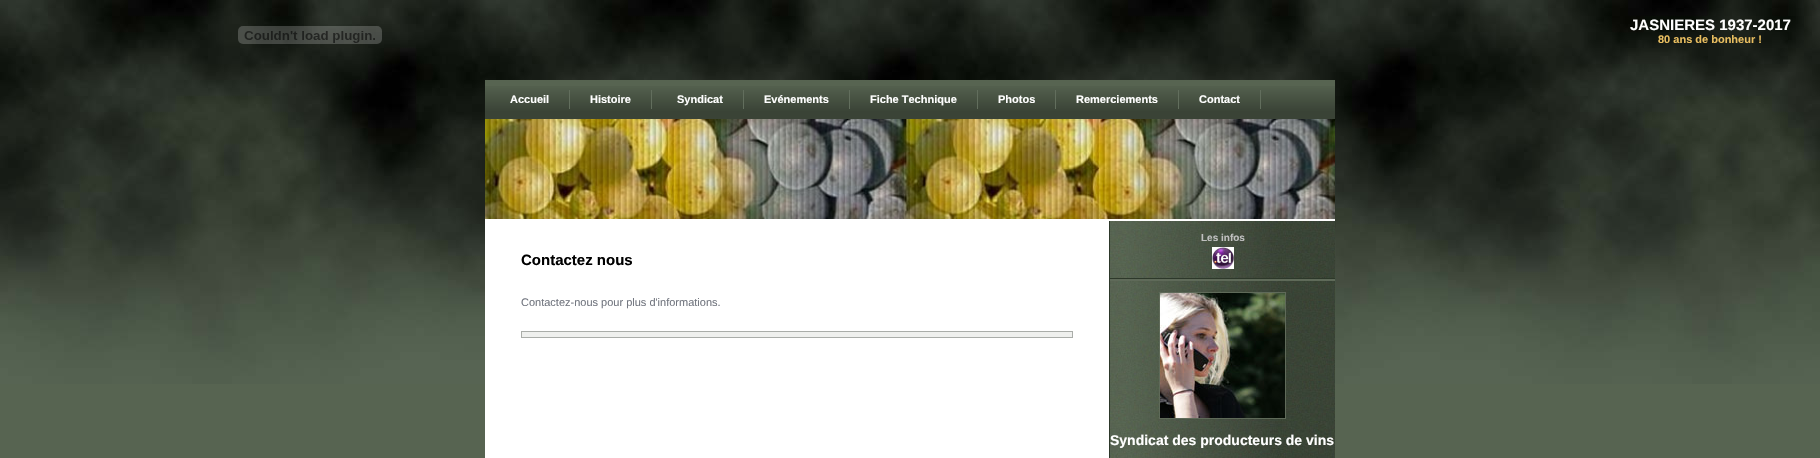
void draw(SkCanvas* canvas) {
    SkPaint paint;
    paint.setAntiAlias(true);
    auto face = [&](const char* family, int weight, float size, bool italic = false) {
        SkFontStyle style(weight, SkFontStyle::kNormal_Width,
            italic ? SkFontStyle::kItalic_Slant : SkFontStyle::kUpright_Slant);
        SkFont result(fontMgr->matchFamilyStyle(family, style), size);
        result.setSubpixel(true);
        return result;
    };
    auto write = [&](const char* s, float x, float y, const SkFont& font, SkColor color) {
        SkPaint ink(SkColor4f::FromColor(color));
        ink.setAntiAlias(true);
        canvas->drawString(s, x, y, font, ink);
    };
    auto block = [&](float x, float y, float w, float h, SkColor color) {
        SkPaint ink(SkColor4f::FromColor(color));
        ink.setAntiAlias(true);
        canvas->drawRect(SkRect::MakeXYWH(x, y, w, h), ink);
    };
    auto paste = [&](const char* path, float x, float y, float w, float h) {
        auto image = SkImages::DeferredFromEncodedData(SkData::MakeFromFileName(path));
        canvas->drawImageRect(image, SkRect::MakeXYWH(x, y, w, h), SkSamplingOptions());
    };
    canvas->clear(SkColorSetRGB(87, 100, 81));
    paste("pic1.png", 0, 0, 1820, 384);
    paste("pic2.png", 238, 26, 144, 18);
    auto kFont1 = face("Liberation Sans", 700, 15);
    write("JASNIERES 1937-2017", 1630, 30, kFont1, SK_ColorWHITE);
    auto kFont2 = face("Liberation Sans", 700, 11);
    write("80 ans de bonheur !", 1658, 43, kFont2, SkColorSetRGB(233, 190, 96));
    block(485, 219, 850, 239, SK_ColorWHITE);
    block(485, 80, 850, 6, SkColorSetRGB(87, 100, 81));
    paste("pic3.png", 485, 86, 850, 33);
    block(569, 90, 1, 19, SkColorSetRGB(98, 110, 93));
    write("Accueil", 510, 103, kFont2, SK_ColorWHITE);
    block(651, 90, 1, 19, SkColorSetRGB(98, 110, 93));
    write("Histoire", 590, 103, kFont2, SK_ColorWHITE);
    block(743, 90, 1, 19, SkColorSetRGB(98, 110, 93));
    write("Syndicat", 677, 103, kFont2, SK_ColorWHITE);
    block(849, 90, 1, 19, SkColorSetRGB(98, 110, 93));
    write("Evénements", 764, 103, kFont2, SK_ColorWHITE);
    block(977, 90, 1, 19, SkColorSetRGB(98, 110, 93));
    write("Fiche Technique", 870, 103, kFont2, SK_ColorWHITE);
    block(1055, 90, 1, 19, SkColorSetRGB(98, 110, 93));
    write("Photos", 998, 103, kFont2, SK_ColorWHITE);
    block(1178, 90, 1, 19, SkColorSetRGB(98, 110, 93));
    write("Remerciements", 1076, 103, kFont2, SK_ColorWHITE);
    block(1260, 90, 1, 19, SkColorSetRGB(98, 110, 93));
    write("Contact", 1199, 103, kFont2, SK_ColorWHITE);
    paste("pic4.png", 485, 119, 850, 100);
    write("Contactez nous", 521, 265, kFont1, SK_ColorBLACK);
    auto kFont3 = face("Liberation Sans", 400, 11);
    write("Contactez-nous pour plus d'informations.", 521, 306, kFont3, SkColorSetRGB(114, 118, 127));
    paint.setColor(SkColorSetRGB(239, 240, 238));
    canvas->drawRect(SkRect::MakeXYWH(521.5f, 331.5f, 551, 6), paint);
    paint.setStyle(SkPaint::kStroke_Style);
    paint.setStrokeWidth(1);
    paint.setColor(SkColorSetRGB(170, 173, 169));
    canvas->drawRect(SkRect::MakeXYWH(521.5f, 331.5f, 551, 6), paint);
    paste("pic5.png", 1110, 221, 225, 237);
    block(1109, 221, 1, 237, SkColorSetRGB(45, 56, 42));
    auto kFont4 = face("Liberation Sans", 700, 10);
    write("Les infos", 1201, 241, kFont4, SkColorSetRGB(192, 192, 192));
    paste("pic6.png", 1212, 247, 22, 22);
    block(1110, 279, 225, 2, SkColorSetRGB(95, 106, 89));
    block(1110, 278, 225, 1, SkColorSetRGB(45, 56, 42));
    paint.setColor(SkColorSetRGB(95, 106, 89));
    canvas->drawRect(SkRect::MakeXYWH(1159.5f, 292.5f, 126, 126), paint);
    paste("pic7.png", 1160, 293, 125, 125);
    auto kFont5 = face("Liberation Sans", 700, 14);
    write("Syndicat des producteurs de vins", 1110, 445, kFont5, SK_ColorWHITE);
}
